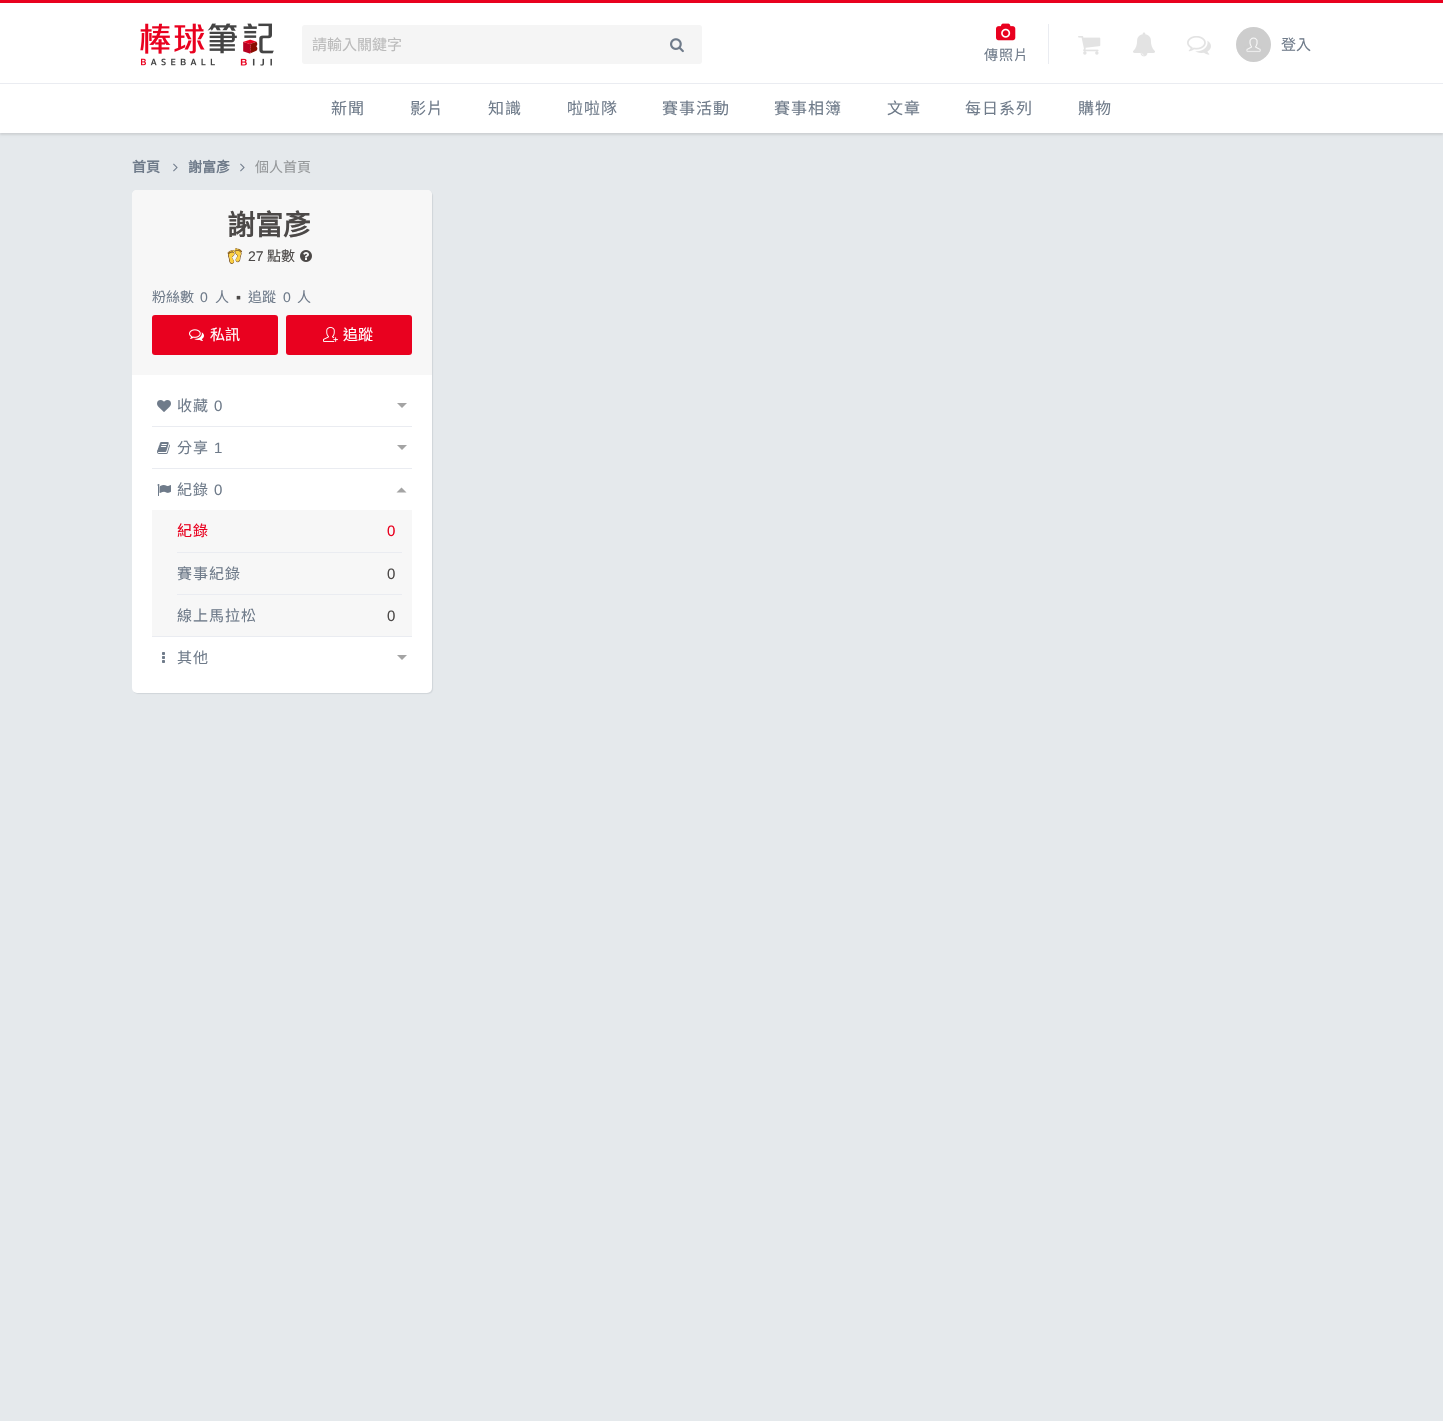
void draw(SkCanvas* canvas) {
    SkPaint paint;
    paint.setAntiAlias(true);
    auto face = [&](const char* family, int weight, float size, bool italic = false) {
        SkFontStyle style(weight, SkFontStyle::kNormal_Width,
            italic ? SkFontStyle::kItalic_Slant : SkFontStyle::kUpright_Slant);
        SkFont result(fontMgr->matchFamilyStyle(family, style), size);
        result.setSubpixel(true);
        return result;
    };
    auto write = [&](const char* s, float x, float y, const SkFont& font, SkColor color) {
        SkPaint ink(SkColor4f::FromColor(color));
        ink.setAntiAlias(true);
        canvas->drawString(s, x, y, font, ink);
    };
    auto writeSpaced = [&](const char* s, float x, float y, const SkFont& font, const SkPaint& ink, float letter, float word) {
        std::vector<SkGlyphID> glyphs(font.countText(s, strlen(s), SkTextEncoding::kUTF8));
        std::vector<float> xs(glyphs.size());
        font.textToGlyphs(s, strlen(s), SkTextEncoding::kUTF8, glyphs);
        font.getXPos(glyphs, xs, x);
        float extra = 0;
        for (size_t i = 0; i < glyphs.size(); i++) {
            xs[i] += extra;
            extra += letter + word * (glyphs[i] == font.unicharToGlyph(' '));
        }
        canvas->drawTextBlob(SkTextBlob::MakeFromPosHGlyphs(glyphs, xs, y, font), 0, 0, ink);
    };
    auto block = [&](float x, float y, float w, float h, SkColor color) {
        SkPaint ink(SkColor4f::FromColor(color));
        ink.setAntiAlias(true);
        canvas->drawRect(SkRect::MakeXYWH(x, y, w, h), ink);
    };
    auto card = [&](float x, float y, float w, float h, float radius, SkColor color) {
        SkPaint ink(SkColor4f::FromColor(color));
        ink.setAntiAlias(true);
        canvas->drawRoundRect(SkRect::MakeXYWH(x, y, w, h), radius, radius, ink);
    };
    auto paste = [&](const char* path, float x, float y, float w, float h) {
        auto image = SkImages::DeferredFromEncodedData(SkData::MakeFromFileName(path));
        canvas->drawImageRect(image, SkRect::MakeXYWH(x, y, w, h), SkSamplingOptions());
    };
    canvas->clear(SkColorSetRGB(229, 233, 236));
    block(0, 0, 1443, 3, SkColorSetRGB(233, 1, 31));
    paint.setColor(SkColorSetARGB(26, 0, 0, 0));
    paint.setMaskFilter(SkMaskFilter::MakeBlur(kNormal_SkBlurStyle, 1));
    canvas->drawRect(SkRect::MakeXYWH(0, 5, 1443, 130), paint);
    paint.setMaskFilter(nullptr);
    block(0, 3, 1443, 130, SK_ColorWHITE);
    block(0, 83, 1443, 1, SkColorSetRGB(234, 236, 241));
    paste("pic1.png", 140, 23, 134, 43);
    card(302, 25, 400, 39, 3, SkColorSetRGB(245, 245, 245));
    auto kFont1 = face("Noto Sans CJK TC", 400, 15);
    write("請輸入關鍵字", 312, 50, kFont1, SkColorSetRGB(187, 187, 187));
    paste("pic2.png", 670, 38, 14, 15);
    paste("pic3.png", 1078, 36, 23, 19);
    paste("pic4.png", 1133, 32, 22, 25);
    paste("pic5.png", 1187, 36, 24, 19);
    paste("pic6.png", 1236, 27, 35, 35);
    write("登入", 1281, 50, kFont1, SkColorSetRGB(111, 123, 138));
    paste("pic7.png", 996, 23, 20, 18);
    block(1048, 24, 1, 40, SkColorSetRGB(234, 236, 241));
    auto kFont2 = face("Noto Sans CJK TC", 400, 14);
    paint.setColor(SkColorSetRGB(111, 123, 138));
    writeSpaced("傳照片", 984, 60, kFont2, paint, 1, 0);
    auto kFont3 = face("Noto Sans CJK TC", 400, 16);
    writeSpaced("新聞", 331, 114, kFont3, paint, 1, 0);
    writeSpaced("影片", 410, 114, kFont3, paint, 1, 0);
    writeSpaced("知識", 488, 114, kFont3, paint, 1, 0);
    writeSpaced("啦啦隊", 567, 114, kFont3, paint, 1, 0);
    writeSpaced("賽事活動", 662, 114, kFont3, paint, 1, 0);
    writeSpaced("賽事相簿", 774, 114, kFont3, paint, 1, 0);
    writeSpaced("文章", 887, 114, kFont3, paint, 1, 0);
    writeSpaced("每日系列", 965, 114, kFont3, paint, 1, 0);
    writeSpaced("購物", 1078, 114, kFont3, paint, 1, 0);
    auto kFont4 = face("Noto Sans CJK TC", 700, 14);
    write("首頁", 132, 172, kFont4, SkColorSetRGB(111, 123, 138));
    paste("pic8.png", 173, 163, 5, 9);
    write("謝富彥", 188, 172, kFont4, SkColorSetRGB(111, 123, 138));
    paste("pic8.png", 240, 163, 5, 9);
    write("個人首頁", 255, 172, kFont2, SkColorSetRGB(149, 152, 154));
    paint.setColor(SkColorSetARGB(26, 34, 38, 46));
    paint.setMaskFilter(SkMaskFilter::MakeBlur(kNormal_SkBlurStyle, 0.5f));
    canvas->drawRoundRect(SkRect::MakeXYWH(133, 191, 300, 503), 5, 5, paint);
    paint.setMaskFilter(nullptr);
    card(132, 190, 300, 503, 5, SK_ColorWHITE);
    paint.setColor(SkColorSetRGB(247, 247, 247));
    canvas->drawPath(SkPathBuilder().moveTo(137, 190).lineTo(427, 190).cubicTo(430, 190, 432, 192, 432, 195).lineTo(432, 375).lineTo(132, 375).lineTo(132, 195).cubicTo(132, 192, 134, 190, 137, 190).close().detach(), paint);
    auto kFont5 = face("Noto Sans CJK TC", 700, 28);
    write("謝富彥", 227, 235, kFont5, SkColorSetRGB(76, 73, 72));
    paste("pic9.png", 227, 248, 15, 16);
    auto kFont6 = face("Liberation Sans", 400, 14);
    write("27", 248, 261, kFont6, SkColorSetRGB(76, 73, 72));
    write("點數", 267, 261, kFont2, SkColorSetRGB(76, 73, 72));
    paste("pic10.png", 300, 250, 12, 12);
    write("粉絲數", 152, 302, kFont2, SkColorSetRGB(111, 123, 138));
    write("0", 200, 302, kFont6, SkColorSetRGB(111, 123, 138));
    write("人", 215, 302, kFont2, SkColorSetRGB(111, 123, 138));
    write("▪", 236, 302, kFont6, SkColorSetRGB(76, 73, 72));
    write("追蹤", 248, 302, kFont2, SkColorSetRGB(111, 123, 138));
    write("0", 283, 302, kFont6, SkColorSetRGB(111, 123, 138));
    write("人", 297, 302, kFont2, SkColorSetRGB(111, 123, 138));
    card(152, 315, 126, 40, 3, SkColorSetRGB(233, 1, 31));
    paste("pic11.png", 189, 329, 15, 12);
    write("私訊", 210, 340, kFont1, SK_ColorWHITE);
    card(286, 315, 126, 40, 3, SkColorSetRGB(233, 1, 31));
    paste("pic12.png", 323, 326, 15, 16);
    write("追蹤", 343, 340, kFont1, SK_ColorWHITE);
    paste("pic13.png", 157, 400, 14, 12);
    paint.setColor(SkColorSetRGB(111, 123, 138));
    writeSpaced("收藏", 177, 411, kFont1, paint, 1, 0);
    auto kFont7 = face("Liberation Sans", 400, 15);
    writeSpaced("0", 214, 411, kFont7, paint, 1, 0);
    paint.setColor(SkColorSetRGB(164, 164, 164));
    canvas->drawPath(SkPathBuilder().moveTo(397, 403).lineTo(407, 403).lineTo(402, 408).close().detach(), paint);
    block(152, 426, 260, 1, SkColorSetRGB(234, 236, 241));
    paste("pic14.png", 157, 442, 13, 12);
    paint.setColor(SkColorSetRGB(111, 123, 138));
    writeSpaced("分享", 177, 453, kFont1, paint, 1, 0);
    writeSpaced("1", 214, 453, kFont7, paint, 1, 0);
    paint.setColor(SkColorSetRGB(164, 164, 164));
    canvas->drawPath(SkPathBuilder().moveTo(397, 445).lineTo(407, 445).lineTo(402, 450).close().detach(), paint);
    block(152, 468, 260, 1, SkColorSetRGB(234, 236, 241));
    paste("pic15.png", 157, 484, 14, 12);
    paint.setColor(SkColorSetRGB(111, 123, 138));
    writeSpaced("紀錄", 177, 495, kFont1, paint, 1, 0);
    writeSpaced("0", 214, 495, kFont7, paint, 1, 0);
    paint.setColor(SkColorSetRGB(164, 164, 164));
    canvas->drawPath(SkPathBuilder().moveTo(406.5f, 492.5f).lineTo(396.5f, 492.5f).lineTo(401.5f, 487.5f).close().detach(), paint);
    block(152, 510, 260, 126, SkColorSetRGB(247, 247, 247));
    paint.setColor(SkColorSetRGB(233, 1, 31));
    writeSpaced("紀錄", 177, 536, kFont1, paint, 1, 0);
    writeSpaced("0", 387, 536, kFont7, paint, 1, 0);
    block(177, 552, 225, 1, SkColorSetRGB(234, 236, 241));
    paint.setColor(SkColorSetRGB(111, 123, 138));
    writeSpaced("賽事紀錄", 177, 579, kFont1, paint, 1, 0);
    paint.setColor(SkColorSetRGB(76, 73, 72));
    writeSpaced("0", 387, 579, kFont7, paint, 1, 0);
    block(177, 594, 225, 1, SkColorSetRGB(234, 236, 241));
    paint.setColor(SkColorSetRGB(111, 123, 138));
    writeSpaced("線上馬拉松", 177, 621, kFont1, paint, 1, 0);
    paint.setColor(SkColorSetRGB(76, 73, 72));
    writeSpaced("0", 387, 621, kFont7, paint, 1, 0);
    block(152, 636, 260, 1, SkColorSetRGB(234, 236, 241));
    paste("pic16.png", 162, 652, 3, 11);
    paint.setColor(SkColorSetRGB(111, 123, 138));
    writeSpaced("其他", 177, 663, kFont1, paint, 1, 0);
    paint.setColor(SkColorSetRGB(164, 164, 164));
    canvas->drawPath(SkPathBuilder().moveTo(397, 655).lineTo(407, 655).lineTo(402, 660).close().detach(), paint);
}
